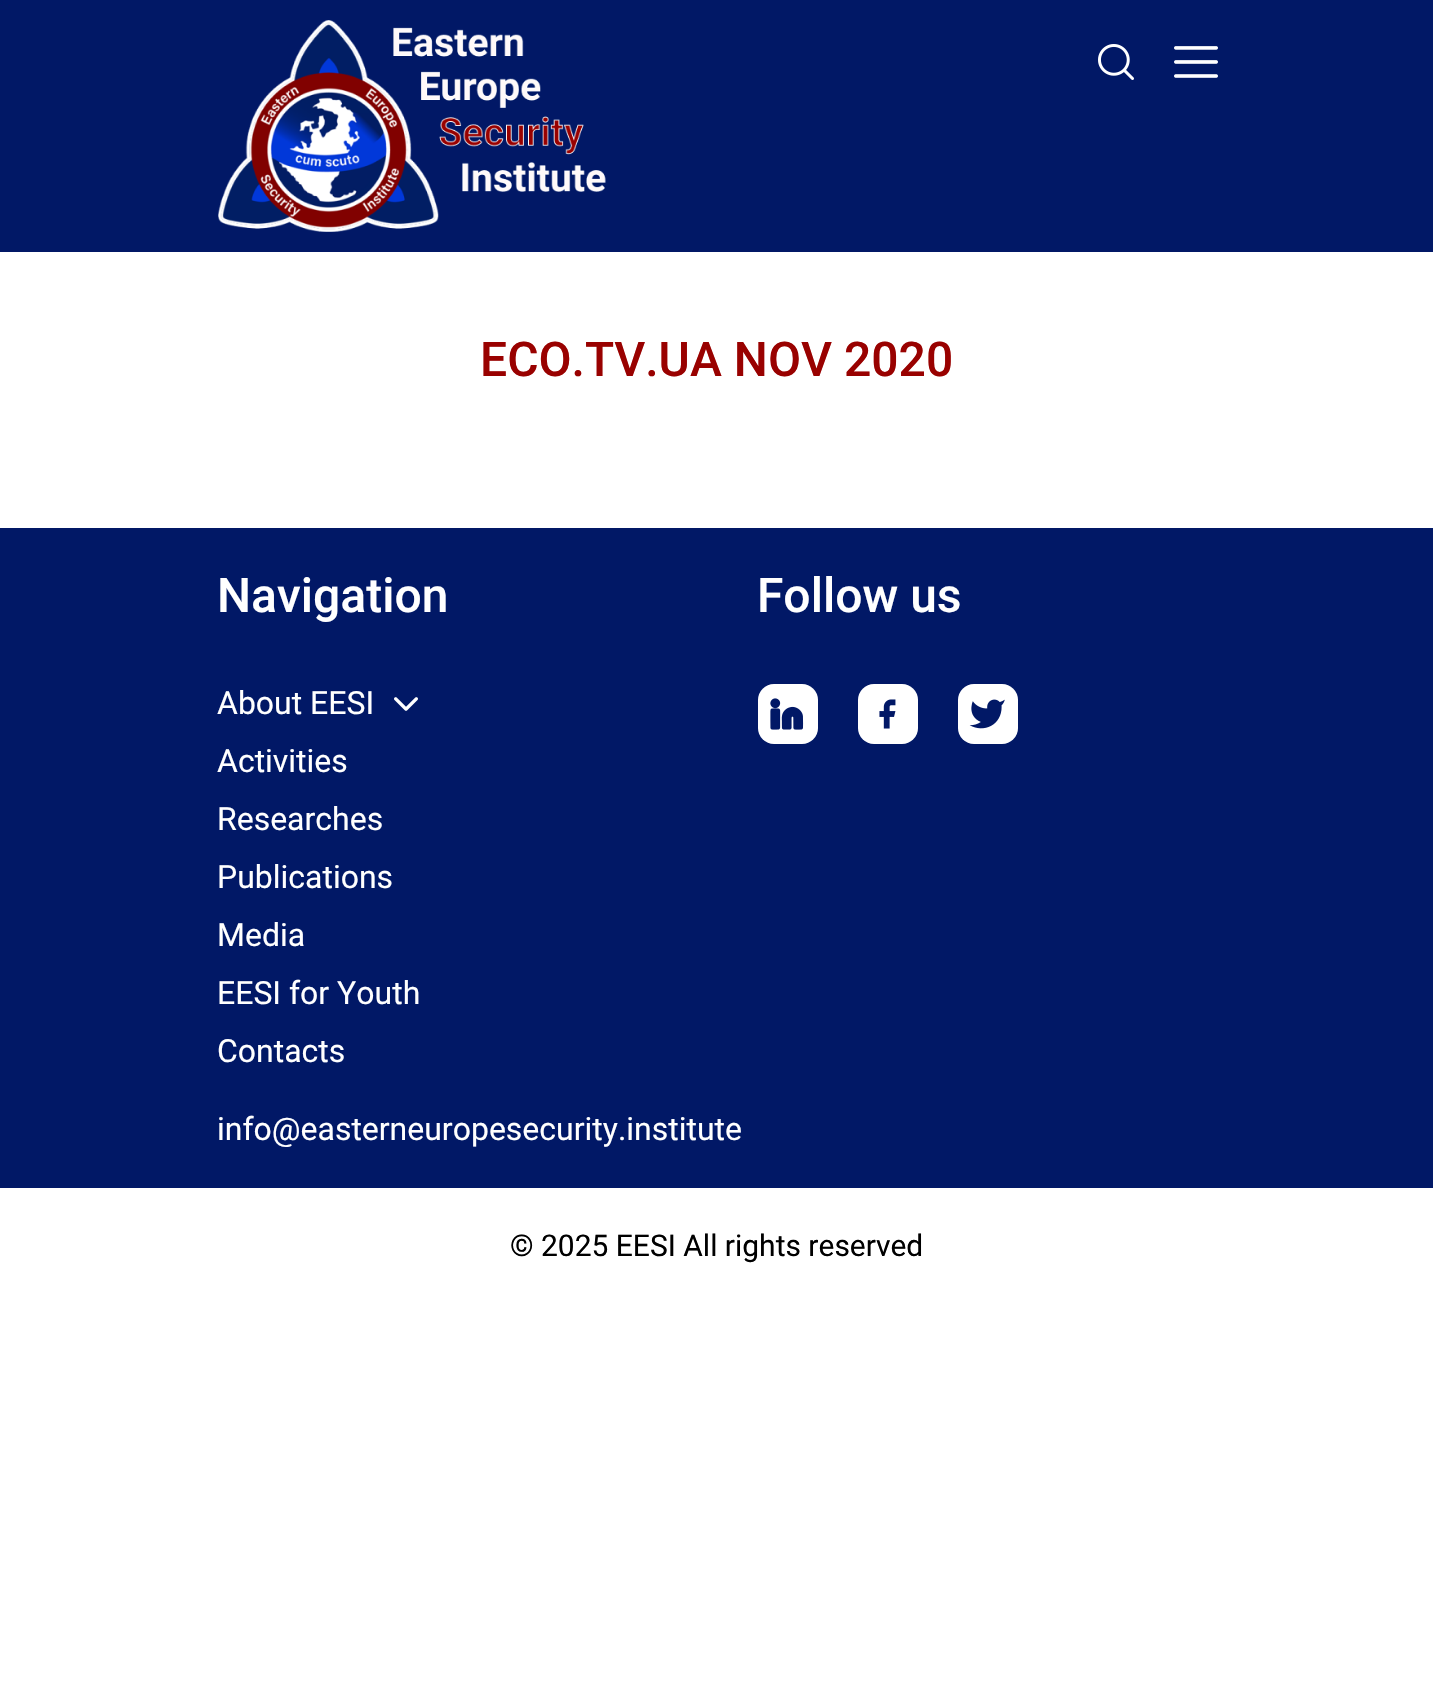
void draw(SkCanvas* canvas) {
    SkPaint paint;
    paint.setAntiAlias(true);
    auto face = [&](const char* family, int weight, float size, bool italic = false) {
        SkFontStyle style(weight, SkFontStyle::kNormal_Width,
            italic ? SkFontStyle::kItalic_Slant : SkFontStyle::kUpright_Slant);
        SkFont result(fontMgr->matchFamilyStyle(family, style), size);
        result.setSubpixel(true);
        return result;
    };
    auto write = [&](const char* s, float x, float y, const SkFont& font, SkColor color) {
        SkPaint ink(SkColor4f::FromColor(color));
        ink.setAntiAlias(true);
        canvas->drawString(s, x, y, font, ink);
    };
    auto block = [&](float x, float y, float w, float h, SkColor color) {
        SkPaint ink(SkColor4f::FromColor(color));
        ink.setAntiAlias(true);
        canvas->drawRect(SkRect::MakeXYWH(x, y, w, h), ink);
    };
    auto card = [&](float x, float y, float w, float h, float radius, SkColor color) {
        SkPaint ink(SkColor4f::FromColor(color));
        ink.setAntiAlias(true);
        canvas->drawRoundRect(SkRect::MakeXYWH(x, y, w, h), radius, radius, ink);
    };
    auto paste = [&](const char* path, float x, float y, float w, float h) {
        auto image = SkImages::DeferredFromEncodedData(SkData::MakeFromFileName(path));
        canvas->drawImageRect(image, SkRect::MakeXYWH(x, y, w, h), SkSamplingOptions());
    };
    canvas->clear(SK_ColorWHITE);
    block(0, 0, 1433, 252, SkColorSetRGB(1, 24, 102));
    paste("pic1.png", 218, 20, 388, 212);
    paste("pic2.png", 1098, 44, 36, 36);
    paste("pic3.png", 1174, 46, 44, 32);
    auto kFont1 = face("Roboto", 500, 48);
    write("ECO.TV.UA NOV 2020", 480, 376, kFont1, SkColorSetRGB(153, 1, 0));
    block(0, 528, 1433, 660, SkColorSetRGB(1, 24, 102));
    write("Navigation", 217, 612, kFont1, SK_ColorWHITE);
    auto kFont2 = face("Roboto", 400, 32);
    write("About EESI", 217, 714, kFont2, SK_ColorWHITE);
    paste("pic4.png", 394, 697, 24, 14);
    write("Activities", 217, 772, kFont2, SK_ColorWHITE);
    write("Researches", 217, 830, kFont2, SK_ColorWHITE);
    write("Publications", 217, 888, kFont2, SK_ColorWHITE);
    write("Media", 217, 946, kFont2, SK_ColorWHITE);
    write("EESI for Youth", 217, 1004, kFont2, SK_ColorWHITE);
    write("Contacts", 217, 1062, kFont2, SK_ColorWHITE);
    write("Follow us", 757, 612, kFont1, SK_ColorWHITE);
    card(758, 684, 60, 60, 16, SK_ColorWHITE);
    paste("pic5.png", 770, 698, 34, 32);
    card(858, 684, 60, 60, 16, SK_ColorWHITE);
    paste("pic6.png", 879, 699, 17, 30);
    card(958, 684, 60, 60, 16, SK_ColorWHITE);
    paste("pic7.png", 969, 699, 36, 30);
    write("info@easterneuropesecurity.institute", 217, 1140, kFont2, SK_ColorWHITE);
    auto kFont3 = face("Roboto", 400, 30);
    write("© 2025 EESI All rights reserved", 510, 1256, kFont3, SK_ColorBLACK);
}
